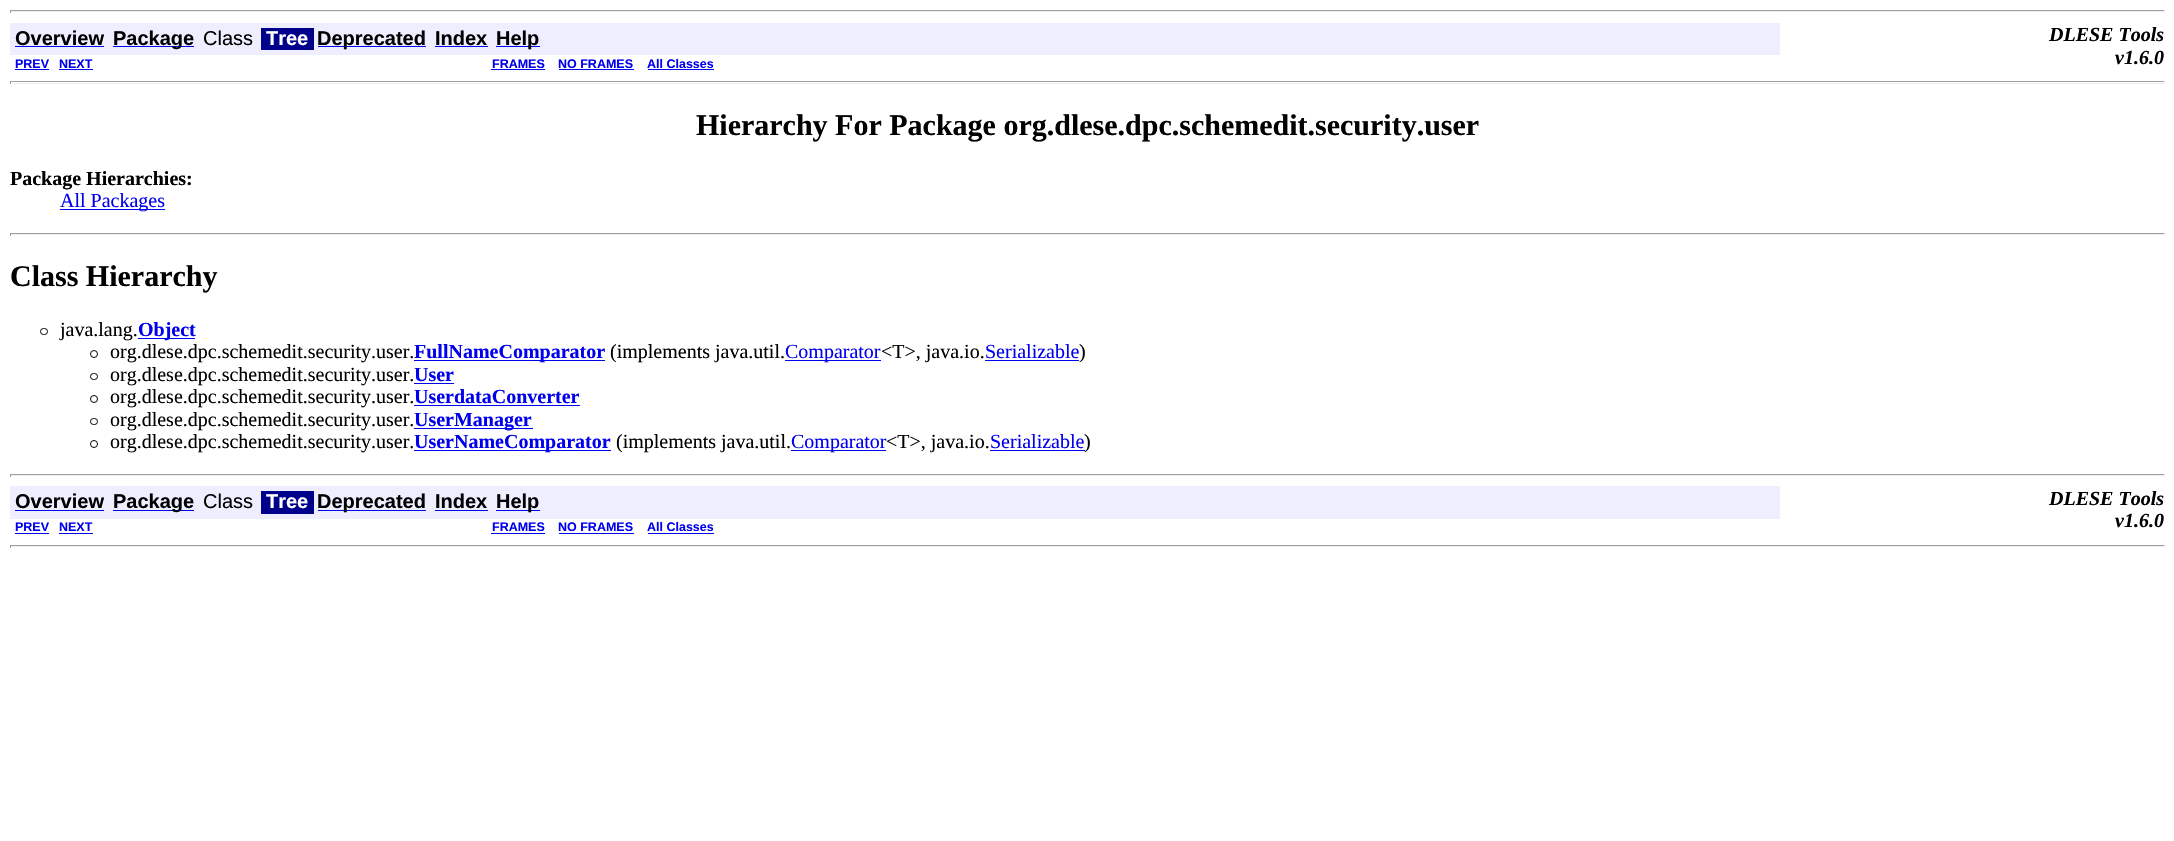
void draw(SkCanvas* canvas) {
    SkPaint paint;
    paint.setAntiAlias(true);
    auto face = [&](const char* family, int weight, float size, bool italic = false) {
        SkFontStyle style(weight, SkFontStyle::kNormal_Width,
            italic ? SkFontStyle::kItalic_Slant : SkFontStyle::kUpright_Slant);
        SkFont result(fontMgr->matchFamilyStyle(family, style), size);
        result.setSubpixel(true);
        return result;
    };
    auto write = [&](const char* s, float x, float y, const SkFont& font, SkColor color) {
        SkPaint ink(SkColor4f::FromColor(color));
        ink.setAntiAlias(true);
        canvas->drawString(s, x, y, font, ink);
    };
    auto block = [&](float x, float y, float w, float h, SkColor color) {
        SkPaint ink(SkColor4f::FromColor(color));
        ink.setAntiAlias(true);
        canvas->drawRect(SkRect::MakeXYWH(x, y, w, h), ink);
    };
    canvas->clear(SK_ColorWHITE);
    block(10, 10, 2155, 1, SkColorSetRGB(159, 159, 159));
    block(2164, 10, 1, 3, SkColorSetRGB(238, 238, 238));
    block(10, 11, 2155, 1, SkColorSetRGB(238, 238, 238));
    block(10, 10, 1, 3, SkColorSetRGB(159, 159, 159));
    block(10, 23, 1770, 32, SkColorSetRGB(238, 238, 255));
    auto kFont1 = face("Liberation Sans", 700, 20);
    write("Overview", 15, 45, kFont1, SK_ColorBLACK);
    block(15, 46, 89, 1, SkColorSetRGB(0, 0, 238));
    block(113, 46, 81, 1, SkColorSetRGB(0, 0, 238));
    write("Package", 113, 45, kFont1, SK_ColorBLACK);
    auto kFont2 = face("Liberation Sans", 400, 20);
    write("Class", 203, 45, kFont2, SK_ColorBLACK);
    block(261, 28, 53, 22, SkColorSetRGB(0, 0, 139));
    write("Tree", 266, 45, kFont1, SK_ColorWHITE);
    block(318, 46, 108, 1, SkColorSetRGB(0, 0, 238));
    write("Deprecated", 317, 45, kFont1, SK_ColorBLACK);
    write("Index", 435, 45, kFont1, SK_ColorBLACK);
    block(435, 46, 53, 1, SkColorSetRGB(0, 0, 238));
    block(496, 46, 44, 1, SkColorSetRGB(0, 0, 238));
    write("Help", 496, 45, kFont1, SK_ColorBLACK);
    auto kFont3 = face("Liberation Serif", 700, 20, true);
    write("DLESE Tools", 2049, 41, kFont3, SK_ColorBLACK);
    write("v1.6.0", 2115, 64, kFont3, SK_ColorBLACK);
    auto kFont4 = face("Liberation Sans", 700, 12.5f);
    write("PREV", 15, 68, kFont4, SkColorSetRGB(0, 0, 238));
    block(15, 69, 34, 1, SkColorSetRGB(0, 0, 238));
    write("NEXT", 59, 68, kFont4, SkColorSetRGB(0, 0, 238));
    block(59, 69, 34, 1, SkColorSetRGB(0, 0, 238));
    write("FRAMES", 492, 68, kFont4, SkColorSetRGB(0, 0, 238));
    block(491, 69, 54, 1, SkColorSetRGB(0, 0, 238));
    write("NO FRAMES", 558, 68, kFont4, SkColorSetRGB(0, 0, 238));
    block(559, 69, 75, 1, SkColorSetRGB(0, 0, 238));
    write("All Classes", 647, 68, kFont4, SkColorSetRGB(0, 0, 238));
    block(648, 69, 66, 1, SkColorSetRGB(0, 0, 238));
    block(10, 81, 2155, 1, SkColorSetRGB(159, 159, 159));
    block(2164, 81, 1, 3, SkColorSetRGB(238, 238, 238));
    block(10, 83, 2155, 1, SkColorSetRGB(238, 238, 238));
    block(10, 81, 1, 3, SkColorSetRGB(159, 159, 159));
    auto kFont5 = face("Liberation Serif", 700, 30);
    write("Hierarchy For Package org.dlese.dpc.schemedit.security.user", 696, 135, kFont5, SK_ColorBLACK);
    auto kFont6 = face("Liberation Serif", 700, 20);
    write("Package Hierarchies:", 10, 185, kFont6, SK_ColorBLACK);
    block(60, 209, 105, 1, SkColorSetRGB(0, 0, 238));
    auto kFont7 = face("Liberation Serif", 400, 20);
    write("All Packages", 60, 207, kFont7, SkColorSetRGB(0, 0, 238));
    block(10, 233, 2155, 1, SkColorSetRGB(159, 159, 159));
    block(2164, 233, 1, 3, SkColorSetRGB(238, 238, 238));
    block(10, 234, 2155, 1, SkColorSetRGB(238, 238, 238));
    block(10, 233, 1, 3, SkColorSetRGB(159, 159, 159));
    write("Class Hierarchy", 10, 286, kFont5, SK_ColorBLACK);
    paint.setStyle(SkPaint::kStroke_Style);
    paint.setStrokeWidth(1);
    paint.setColor(SK_ColorBLACK);
    canvas->drawRoundRect(SkRect::MakeXYWH(40.5f, 328.5f, 7, 6), 3, 3, paint);
    write("java.lang.", 60, 336, kFont7, SK_ColorBLACK);
    block(138, 338, 57, 1, SkColorSetRGB(0, 0, 238));
    write("Object", 138, 336, kFont6, SkColorSetRGB(0, 0, 238));
    canvas->drawCircle(94, 354, 3.5f, paint);
    write("org.dlese.dpc.schemedit.security.user.", 110, 358, kFont7, SK_ColorBLACK);
    block(414, 360, 191, 1, SkColorSetRGB(0, 0, 238));
    write("FullNameComparator", 414, 358, kFont6, SkColorSetRGB(0, 0, 238));
    write("(implements java.util.", 610, 358, kFont7, SK_ColorBLACK);
    block(785, 360, 96, 1, SkColorSetRGB(0, 0, 238));
    write("Comparator", 785, 358, kFont7, SkColorSetRGB(0, 0, 238));
    write("<T>, java.io.", 881, 358, kFont7, SK_ColorBLACK);
    write("Serializable", 985, 358, kFont7, SkColorSetRGB(0, 0, 238));
    block(985, 360, 94, 1, SkColorSetRGB(0, 0, 238));
    write(")", 1079, 358, kFont7, SK_ColorBLACK);
    canvas->drawRoundRect(SkRect::MakeXYWH(90.5f, 373.5f, 7, 6), 3, 3, paint);
    write("org.dlese.dpc.schemedit.security.user.", 110, 381, kFont7, SK_ColorBLACK);
    write("User", 414, 381, kFont6, SkColorSetRGB(0, 0, 238));
    block(414, 383, 40, 1, SkColorSetRGB(0, 0, 238));
    canvas->drawCircle(94, 399, 3.5f, paint);
    write("org.dlese.dpc.schemedit.security.user.", 110, 403, kFont7, SK_ColorBLACK);
    write("UserdataConverter", 414, 403, kFont6, SkColorSetRGB(0, 0, 238));
    block(414, 405, 166, 1, SkColorSetRGB(0, 0, 238));
    canvas->drawRoundRect(SkRect::MakeXYWH(90.5f, 418.5f, 7, 6), 3, 3, paint);
    write("org.dlese.dpc.schemedit.security.user.", 110, 426, kFont7, SK_ColorBLACK);
    block(414, 428, 119, 1, SkColorSetRGB(0, 0, 238));
    write("UserManager", 414, 426, kFont6, SkColorSetRGB(0, 0, 238));
    canvas->drawCircle(94, 444, 3.5f, paint);
    write("org.dlese.dpc.schemedit.security.user.", 110, 448, kFont7, SK_ColorBLACK);
    block(414, 450, 197, 1, SkColorSetRGB(0, 0, 238));
    write("UserNameComparator", 414, 448, kFont6, SkColorSetRGB(0, 0, 238));
    write("(implements java.util.", 616, 448, kFont7, SK_ColorBLACK);
    block(791, 450, 95, 1, SkColorSetRGB(0, 0, 238));
    write("Comparator", 791, 448, kFont7, SkColorSetRGB(0, 0, 238));
    write("<T>, java.io.", 886, 448, kFont7, SK_ColorBLACK);
    write("Serializable", 990, 448, kFont7, SkColorSetRGB(0, 0, 238));
    block(990, 450, 95, 1, SkColorSetRGB(0, 0, 238));
    write(")", 1084, 448, kFont7, SK_ColorBLACK);
    block(10, 474, 2155, 1, SkColorSetRGB(159, 159, 159));
    block(2164, 474, 1, 3, SkColorSetRGB(238, 238, 238));
    block(10, 475, 2155, 1, SkColorSetRGB(238, 238, 238));
    block(10, 474, 1, 3, SkColorSetRGB(159, 159, 159));
    block(10, 486, 1770, 33, SkColorSetRGB(238, 238, 255));
    write("Overview", 15, 508, kFont1, SK_ColorBLACK);
    block(15, 510, 89, 1, SkColorSetRGB(0, 0, 238));
    block(113, 510, 81, 1, SkColorSetRGB(0, 0, 238));
    write("Package", 113, 508, kFont1, SK_ColorBLACK);
    write("Class", 203, 508, kFont2, SK_ColorBLACK);
    block(261, 491, 53, 23, SkColorSetRGB(0, 0, 139));
    write("Tree", 266, 508, kFont1, SK_ColorWHITE);
    block(318, 510, 108, 1, SkColorSetRGB(0, 0, 238));
    write("Deprecated", 317, 508, kFont1, SK_ColorBLACK);
    write("Index", 435, 508, kFont1, SK_ColorBLACK);
    block(435, 510, 53, 1, SkColorSetRGB(0, 0, 238));
    block(496, 510, 44, 1, SkColorSetRGB(0, 0, 238));
    write("Help", 496, 508, kFont1, SK_ColorBLACK);
    write("DLESE Tools", 2049, 505, kFont3, SK_ColorBLACK);
    write("v1.6.0", 2115, 527, kFont3, SK_ColorBLACK);
    write("PREV", 15, 531, kFont4, SkColorSetRGB(0, 0, 238));
    block(15, 533, 34, 1, SkColorSetRGB(0, 0, 238));
    write("NEXT", 59, 531, kFont4, SkColorSetRGB(0, 0, 238));
    block(59, 533, 34, 1, SkColorSetRGB(0, 0, 238));
    write("FRAMES", 492, 531, kFont4, SkColorSetRGB(0, 0, 238));
    block(491, 533, 54, 1, SkColorSetRGB(0, 0, 238));
    write("NO FRAMES", 558, 531, kFont4, SkColorSetRGB(0, 0, 238));
    block(559, 533, 75, 1, SkColorSetRGB(0, 0, 238));
    write("All Classes", 647, 531, kFont4, SkColorSetRGB(0, 0, 238));
    block(648, 533, 66, 1, SkColorSetRGB(0, 0, 238));
    block(10, 545, 2155, 1, SkColorSetRGB(159, 159, 159));
    block(2164, 545, 1, 3, SkColorSetRGB(238, 238, 238));
    block(10, 546, 2155, 1, SkColorSetRGB(238, 238, 238));
    block(10, 545, 1, 3, SkColorSetRGB(159, 159, 159));
}
